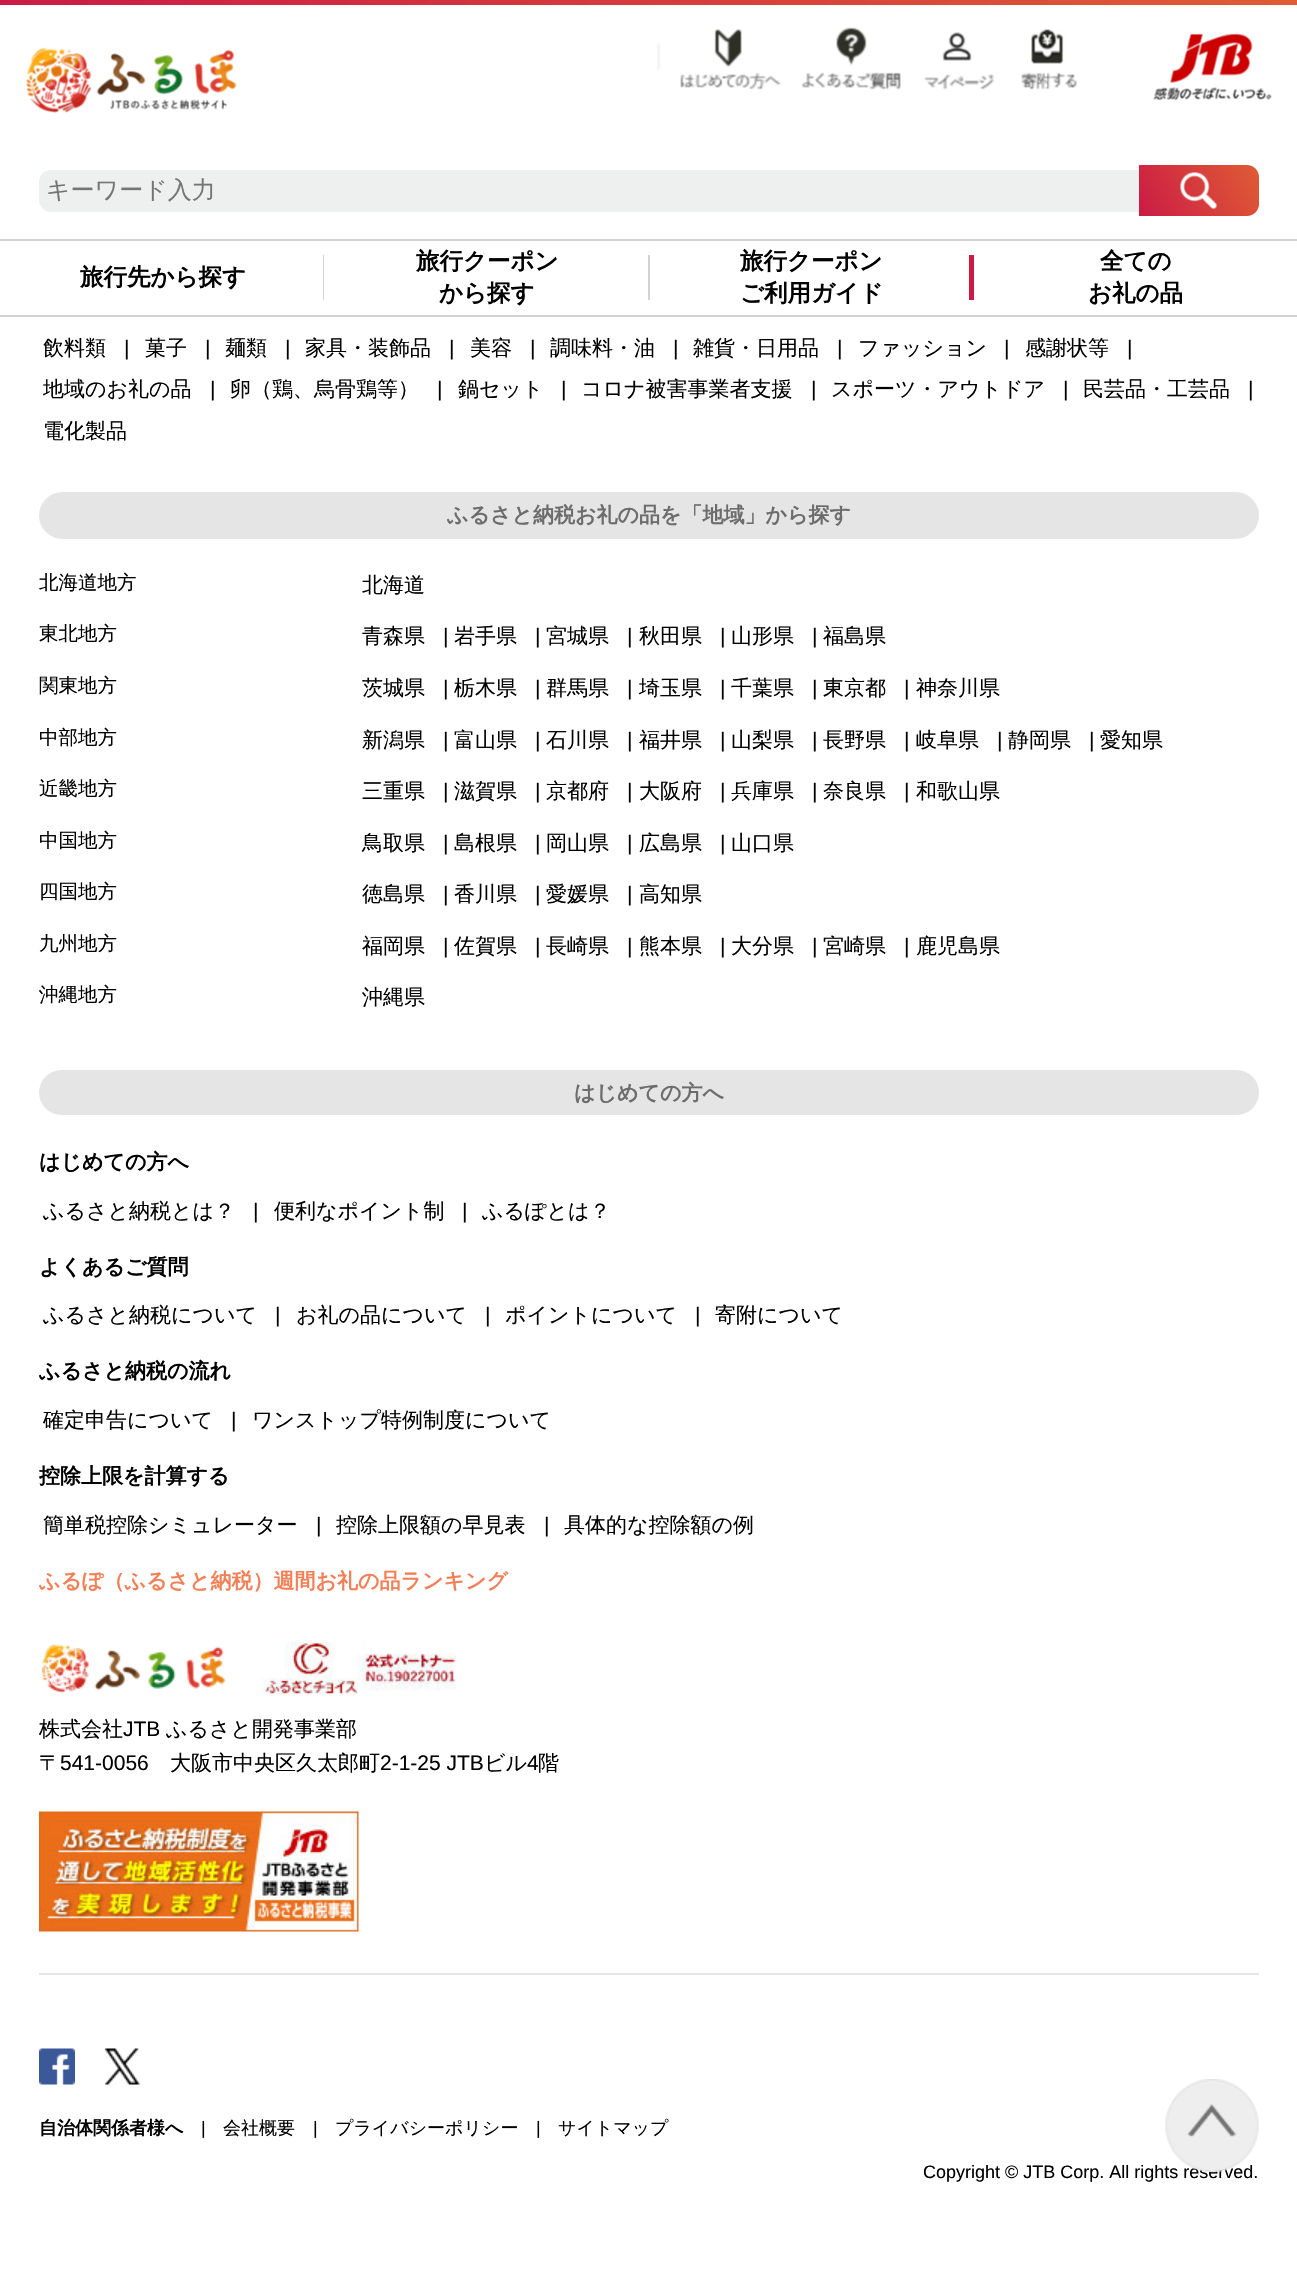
void draw(SkCanvas* canvas) {
    SkPaint paint;
    paint.setAntiAlias(true);
    auto face = [&](const char* family, int weight, float size, bool italic = false) {
        SkFontStyle style(weight, SkFontStyle::kNormal_Width,
            italic ? SkFontStyle::kItalic_Slant : SkFontStyle::kUpright_Slant);
        SkFont result(fontMgr->matchFamilyStyle(family, style), size);
        result.setSubpixel(true);
        return result;
    };
    auto write = [&](const char* s, float x, float y, const SkFont& font, SkColor color) {
        SkPaint ink(SkColor4f::FromColor(color));
        ink.setAntiAlias(true);
        canvas->drawString(s, x, y, font, ink);
    };
    auto block = [&](float x, float y, float w, float h, SkColor color) {
        SkPaint ink(SkColor4f::FromColor(color));
        ink.setAntiAlias(true);
        canvas->drawRect(SkRect::MakeXYWH(x, y, w, h), ink);
    };
    auto card = [&](float x, float y, float w, float h, float radius, SkColor color) {
        SkPaint ink(SkColor4f::FromColor(color));
        ink.setAntiAlias(true);
        canvas->drawRoundRect(SkRect::MakeXYWH(x, y, w, h), radius, radius, ink);
    };
    auto paste = [&](const char* path, float x, float y, float w, float h) {
        auto image = SkImages::DeferredFromEncodedData(SkData::MakeFromFileName(path));
        canvas->drawImageRect(image, SkRect::MakeXYWH(x, y, w, h), SkSamplingOptions());
    };
    canvas->clear(SK_ColorWHITE);
    {
        const SkColor colors[] = {SkColorSetRGB(203, 27, 69), SkColorSetRGB(223, 92, 52)};
        const float stops[] = {0, 1};
        const SkPoint ends[] = {{142, 272}, {1155, -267}};
        paint.setShader(SkGradientShader::MakeLinear(ends, colors, stops, 2, SkTileMode::kClamp));
        paint.setAlpha(255);
    }
    canvas->drawRect(SkRect::MakeXYWH(0, 0, 1297, 5), paint);
    paste("pic1.png", 26, 47, 211, 66);
    paste("pic2.png", 657, 29, 124, 61);
    paste("pic3.png", 801, 27, 100, 63);
    paste("pic4.png", 924, 32, 70, 58);
    paste("pic5.png", 1021, 29, 56, 61);
    paste("pic6.png", 1153, 33, 119, 68);
    paint.setShader(nullptr);
    paint.setColor(SkColorSetRGB(238, 239, 239));
    canvas->drawPath(SkPathBuilder().moveTo(51, 170).lineTo(1139, 170).lineTo(1139, 212).lineTo(51, 212).cubicTo(44.5f, 212, 39, 206.5f, 39, 200).lineTo(39, 182).cubicTo(39, 175.5f, 44.5f, 170, 51, 170).close().detach(), paint);
    auto kFont1 = face("WenQuanYi Zen Hei", 500, 24);
    write("キーワード入力", 46, 198, kFont1, SkColorSetRGB(117, 117, 117));
    {
        const SkColor colors[] = {SkColorSetRGB(203, 27, 69), SkColorSetRGB(223, 92, 52)};
        const float stops[] = {0, 1};
        const SkPoint ends[] = {{1141, 221}, {1256, 160}};
        paint.setShader(SkGradientShader::MakeLinear(ends, colors, stops, 2, SkTileMode::kClamp));
        paint.setAlpha(255);
    }
    canvas->drawPath(SkPathBuilder().moveTo(1139, 165).lineTo(1247, 165).cubicTo(1253.5f, 165, 1259, 170.5f, 1259, 177).lineTo(1259, 204).cubicTo(1259, 210.5f, 1253.5f, 216, 1247, 216).lineTo(1139, 216).close().detach(), paint);
    paste("pic7.png", 1180, 172, 37, 37);
    block(0, 239, 1297, 2, SkColorSetRGB(210, 210, 210));
    block(0, 315, 1297, 2, SkColorSetRGB(210, 210, 210));
    auto kFont2 = face("WenQuanYi Zen Hei", 700, 23.5f);
    write("旅行先から探す", 80, 285, kFont2, SK_ColorBLACK);
    block(323, 255, 1, 45, SkColorSetRGB(210, 210, 210));
    write("旅行クーポン", 416, 269, kFont2, SK_ColorBLACK);
    write("から探す", 439, 301, kFont2, SK_ColorBLACK);
    block(648, 255, 2, 45, SkColorSetRGB(210, 210, 210));
    write("旅行クーポン", 740, 269, kFont2, SK_ColorBLACK);
    write("ご利用ガイド", 740, 301, kFont2, SK_ColorBLACK);
    block(969, 255, 5, 45, SkColorSetRGB(203, 27, 69));
    write("全ての", 1100, 269, kFont2, SK_ColorBLACK);
    write("お礼の品", 1088, 301, kFont2, SK_ColorBLACK);
    auto kFont3 = face("WenQuanYi Zen Hei", 500, 21);
    write("飲料類", 43, 355, kFont3, SK_ColorBLACK);
    auto kFont4 = face("Liberation Sans", 400, 21);
    write("|", 124, 355, kFont4, SK_ColorBLACK);
    write("菓子", 145, 355, kFont3, SK_ColorBLACK);
    write("|", 205, 355, kFont4, SK_ColorBLACK);
    write("麺類", 225, 355, kFont3, SK_ColorBLACK);
    write("|", 285, 355, kFont4, SK_ColorBLACK);
    write("家具・装飾品", 305, 355, kFont3, SK_ColorBLACK);
    write("|", 449, 355, kFont4, SK_ColorBLACK);
    write("美容", 470, 355, kFont3, SK_ColorBLACK);
    write("|", 530, 355, kFont4, SK_ColorBLACK);
    write("調味料・油", 550, 355, kFont3, SK_ColorBLACK);
    write("|", 673, 355, kFont4, SK_ColorBLACK);
    write("雑貨・日用品", 693, 355, kFont3, SK_ColorBLACK);
    write("|", 837, 355, kFont4, SK_ColorBLACK);
    write("ファッション", 858, 355, kFont3, SK_ColorBLACK);
    write("|", 1004, 355, kFont4, SK_ColorBLACK);
    write("感謝状等", 1025, 355, kFont3, SK_ColorBLACK);
    write("|", 1127, 355, kFont4, SK_ColorBLACK);
    write("地域のお礼の品", 43, 396, kFont3, SK_ColorBLACK);
    write("|", 210, 396, kFont4, SK_ColorBLACK);
    write("卵（鶏、烏骨鶏等）", 230, 396, kFont3, SK_ColorBLACK);
    write("|", 437, 396, kFont4, SK_ColorBLACK);
    write("鍋セット", 458, 396, kFont3, SK_ColorBLACK);
    write("|", 561, 396, kFont4, SK_ColorBLACK);
    write("コロナ被害事業者支援", 581, 396, kFont3, SK_ColorBLACK);
    write("|", 811, 396, kFont4, SK_ColorBLACK);
    write("スポーツ・アウトドア", 831, 396, kFont3, SK_ColorBLACK);
    write("|", 1063, 396, kFont4, SK_ColorBLACK);
    write("民芸品・工芸品", 1083, 396, kFont3, SK_ColorBLACK);
    write("|", 1248, 396, kFont4, SK_ColorBLACK);
    write("電化製品", 43, 438, kFont3, SK_ColorBLACK);
    card(39, 492, 1220, 47, 23.5f, SkColorSetRGB(229, 229, 229));
    auto kFont5 = face("WenQuanYi Zen Hei", 700, 21);
    write("ふるさと納税お礼の品を「地域」から探す", 447, 522, kFont5, SkColorSetRGB(108, 108, 108));
    auto kFont6 = face("WenQuanYi Zen Hei", 500, 19.5f);
    write("北海道地方", 39, 589, kFont6, SK_ColorBLACK);
    write("北海道", 362, 592, kFont3, SK_ColorBLACK);
    write("東北地方", 39, 640, kFont6, SK_ColorBLACK);
    write("青森県", 362, 643, kFont3, SK_ColorBLACK);
    write("|", 443, 643, kFont4, SK_ColorBLACK);
    write("岩手県", 454, 643, kFont3, SK_ColorBLACK);
    write("|", 535, 643, kFont4, SK_ColorBLACK);
    write("宮城県", 546, 643, kFont3, SK_ColorBLACK);
    write("|", 627, 643, kFont4, SK_ColorBLACK);
    write("秋田県", 639, 643, kFont3, SK_ColorBLACK);
    write("|", 720, 643, kFont4, SK_ColorBLACK);
    write("山形県", 731, 643, kFont3, SK_ColorBLACK);
    write("|", 812, 643, kFont4, SK_ColorBLACK);
    write("福島県", 823, 643, kFont3, SK_ColorBLACK);
    write("関東地方", 39, 692, kFont6, SK_ColorBLACK);
    write("茨城県", 362, 695, kFont3, SK_ColorBLACK);
    write("|", 443, 695, kFont4, SK_ColorBLACK);
    write("栃木県", 454, 695, kFont3, SK_ColorBLACK);
    write("|", 535, 695, kFont4, SK_ColorBLACK);
    write("群馬県", 546, 695, kFont3, SK_ColorBLACK);
    write("|", 627, 695, kFont4, SK_ColorBLACK);
    write("埼玉県", 639, 695, kFont3, SK_ColorBLACK);
    write("|", 720, 695, kFont4, SK_ColorBLACK);
    write("千葉県", 731, 695, kFont3, SK_ColorBLACK);
    write("|", 812, 695, kFont4, SK_ColorBLACK);
    write("東京都", 823, 695, kFont3, SK_ColorBLACK);
    write("|", 904, 695, kFont4, SK_ColorBLACK);
    write("神奈川県", 916, 695, kFont3, SK_ColorBLACK);
    write("中部地方", 39, 744, kFont6, SK_ColorBLACK);
    write("新潟県", 362, 747, kFont3, SK_ColorBLACK);
    write("|", 443, 747, kFont4, SK_ColorBLACK);
    write("富山県", 454, 747, kFont3, SK_ColorBLACK);
    write("|", 535, 747, kFont4, SK_ColorBLACK);
    write("石川県", 546, 747, kFont3, SK_ColorBLACK);
    write("|", 627, 747, kFont4, SK_ColorBLACK);
    write("福井県", 639, 747, kFont3, SK_ColorBLACK);
    write("|", 720, 747, kFont4, SK_ColorBLACK);
    write("山梨県", 731, 747, kFont3, SK_ColorBLACK);
    write("|", 812, 747, kFont4, SK_ColorBLACK);
    write("長野県", 823, 747, kFont3, SK_ColorBLACK);
    write("|", 904, 747, kFont4, SK_ColorBLACK);
    write("岐阜県", 916, 747, kFont3, SK_ColorBLACK);
    write("|", 997, 747, kFont4, SK_ColorBLACK);
    write("静岡県", 1008, 747, kFont3, SK_ColorBLACK);
    write("|", 1089, 747, kFont4, SK_ColorBLACK);
    write("愛知県", 1100, 747, kFont3, SK_ColorBLACK);
    write("近畿地方", 39, 795, kFont6, SK_ColorBLACK);
    write("三重県", 362, 798, kFont3, SK_ColorBLACK);
    write("|", 443, 798, kFont4, SK_ColorBLACK);
    write("滋賀県", 454, 798, kFont3, SK_ColorBLACK);
    write("|", 535, 798, kFont4, SK_ColorBLACK);
    write("京都府", 546, 798, kFont3, SK_ColorBLACK);
    write("|", 627, 798, kFont4, SK_ColorBLACK);
    write("大阪府", 639, 798, kFont3, SK_ColorBLACK);
    write("|", 720, 798, kFont4, SK_ColorBLACK);
    write("兵庫県", 731, 798, kFont3, SK_ColorBLACK);
    write("|", 812, 798, kFont4, SK_ColorBLACK);
    write("奈良県", 823, 798, kFont3, SK_ColorBLACK);
    write("|", 904, 798, kFont4, SK_ColorBLACK);
    write("和歌山県", 916, 798, kFont3, SK_ColorBLACK);
    write("中国地方", 39, 847, kFont6, SK_ColorBLACK);
    write("鳥取県", 362, 850, kFont3, SK_ColorBLACK);
    write("|", 443, 850, kFont4, SK_ColorBLACK);
    write("島根県", 454, 850, kFont3, SK_ColorBLACK);
    write("|", 535, 850, kFont4, SK_ColorBLACK);
    write("岡山県", 546, 850, kFont3, SK_ColorBLACK);
    write("|", 627, 850, kFont4, SK_ColorBLACK);
    write("広島県", 639, 850, kFont3, SK_ColorBLACK);
    write("|", 720, 850, kFont4, SK_ColorBLACK);
    write("山口県", 731, 850, kFont3, SK_ColorBLACK);
    write("四国地方", 39, 898, kFont6, SK_ColorBLACK);
    write("徳島県", 362, 901, kFont3, SK_ColorBLACK);
    write("|", 443, 901, kFont4, SK_ColorBLACK);
    write("香川県", 454, 901, kFont3, SK_ColorBLACK);
    write("|", 535, 901, kFont4, SK_ColorBLACK);
    write("愛媛県", 546, 901, kFont3, SK_ColorBLACK);
    write("|", 627, 901, kFont4, SK_ColorBLACK);
    write("高知県", 639, 901, kFont3, SK_ColorBLACK);
    write("九州地方", 39, 950, kFont6, SK_ColorBLACK);
    write("福岡県", 362, 953, kFont3, SK_ColorBLACK);
    write("|", 443, 953, kFont4, SK_ColorBLACK);
    write("佐賀県", 454, 953, kFont3, SK_ColorBLACK);
    write("|", 535, 953, kFont4, SK_ColorBLACK);
    write("長崎県", 546, 953, kFont3, SK_ColorBLACK);
    write("|", 627, 953, kFont4, SK_ColorBLACK);
    write("熊本県", 639, 953, kFont3, SK_ColorBLACK);
    write("|", 720, 953, kFont4, SK_ColorBLACK);
    write("大分県", 731, 953, kFont3, SK_ColorBLACK);
    write("|", 812, 953, kFont4, SK_ColorBLACK);
    write("宮崎県", 823, 953, kFont3, SK_ColorBLACK);
    write("|", 904, 953, kFont4, SK_ColorBLACK);
    write("鹿児島県", 916, 953, kFont3, SK_ColorBLACK);
    write("沖縄地方", 39, 1001, kFont6, SK_ColorBLACK);
    write("沖縄県", 362, 1004, kFont3, SK_ColorBLACK);
    card(39, 1070, 1220, 45, 22.5f, SkColorSetRGB(229, 229, 229));
    write("はじめての方へ", 574, 1100, kFont5, SkColorSetRGB(108, 108, 108));
    write("はじめての方へ", 39, 1169, kFont5, SK_ColorBLACK);
    write("ふるさと納税とは？", 43, 1218, kFont3, SK_ColorBLACK);
    write("|", 253, 1218, kFont4, SK_ColorBLACK);
    write("便利なポイント制", 274, 1218, kFont3, SK_ColorBLACK);
    write("|", 462, 1218, kFont4, SK_ColorBLACK);
    write("ふるぽとは？", 482, 1218, kFont3, SK_ColorBLACK);
    write("よくあるご質問", 39, 1274, kFont5, SK_ColorBLACK);
    write("ふるさと納税について", 43, 1322, kFont3, SK_ColorBLACK);
    write("|", 275, 1322, kFont4, SK_ColorBLACK);
    write("お礼の品について", 296, 1322, kFont3, SK_ColorBLACK);
    write("|", 485, 1322, kFont4, SK_ColorBLACK);
    write("ポイントについて", 505, 1322, kFont3, SK_ColorBLACK);
    write("|", 695, 1322, kFont4, SK_ColorBLACK);
    write("寄附について", 715, 1322, kFont3, SK_ColorBLACK);
    write("ふるさと納税の流れ", 39, 1378, kFont5, SK_ColorBLACK);
    write("確定申告について", 43, 1427, kFont3, SK_ColorBLACK);
    write("|", 231, 1427, kFont4, SK_ColorBLACK);
    write("ワンストップ特例制度について", 252, 1427, kFont3, SK_ColorBLACK);
    write("控除上限を計算する", 39, 1483, kFont5, SK_ColorBLACK);
    write("簡単税控除シミュレーター", 43, 1532, kFont3, SK_ColorBLACK);
    write("|", 316, 1532, kFont4, SK_ColorBLACK);
    write("控除上限額の早見表", 336, 1532, kFont3, SK_ColorBLACK);
    write("|", 544, 1532, kFont4, SK_ColorBLACK);
    write("具体的な控除額の例", 564, 1532, kFont3, SK_ColorBLACK);
    write("ふるぽ（ふるさと納税）週間お礼の品ランキング", 39, 1588, kFont5, SkColorSetRGB(243, 127, 86));
    paste("pic8.png", 41, 1643, 185, 51);
    paste("pic9.png", 261, 1642, 195, 53);
    write("株式会社", 39, 1736, kFont3, SK_ColorBLACK);
    write("JTB", 123, 1736, kFont4, SK_ColorBLACK);
    write("ふるさと開発事業部", 166, 1736, kFont3, SK_ColorBLACK);
    write("〒", 39, 1770, kFont3, SK_ColorBLACK);
    write("541-0056", 60, 1770, kFont4, SK_ColorBLACK);
    write("大阪市中央区久太郎町", 170, 1770, kFont3, SK_ColorBLACK);
    write("2-1-25 JTB", 380, 1770, kFont4, SK_ColorBLACK);
    write("ビル", 484, 1770, kFont3, SK_ColorBLACK);
    write("4", 527, 1770, kFont4, SK_ColorBLACK);
    write("階", 538, 1770, kFont3, SK_ColorBLACK);
    paste("pic10.png", 39, 1811, 320, 121);
    block(39, 1973, 1220, 2, SkColorSetRGB(229, 229, 229));
    paste("pic11.png", 39, 2048, 36, 37);
    paste("pic12.png", 105, 2048, 35, 37);
    auto kFont7 = face("WenQuanYi Zen Hei", 700, 18);
    write("自治体関係者様へ", 39, 2134, kFont7, SK_ColorBLACK);
    auto kFont8 = face("Liberation Sans", 400, 18);
    write("|", 201, 2134, kFont8, SK_ColorBLACK);
    auto kFont9 = face("WenQuanYi Zen Hei", 500, 18);
    write("会社概要", 223, 2134, kFont9, SK_ColorBLACK);
    write("|", 313, 2134, kFont8, SK_ColorBLACK);
    write("プライバシーポリシー", 335, 2134, kFont9, SK_ColorBLACK);
    write("|", 536, 2134, kFont8, SK_ColorBLACK);
    write("サイトマップ", 558, 2134, kFont9, SK_ColorBLACK);
    write("Copyright © JTB Corp. All rights reserved.", 923, 2178, kFont8, SK_ColorBLACK);
    paste("pic13.png", 1165, 2079, 94, 93);
}
